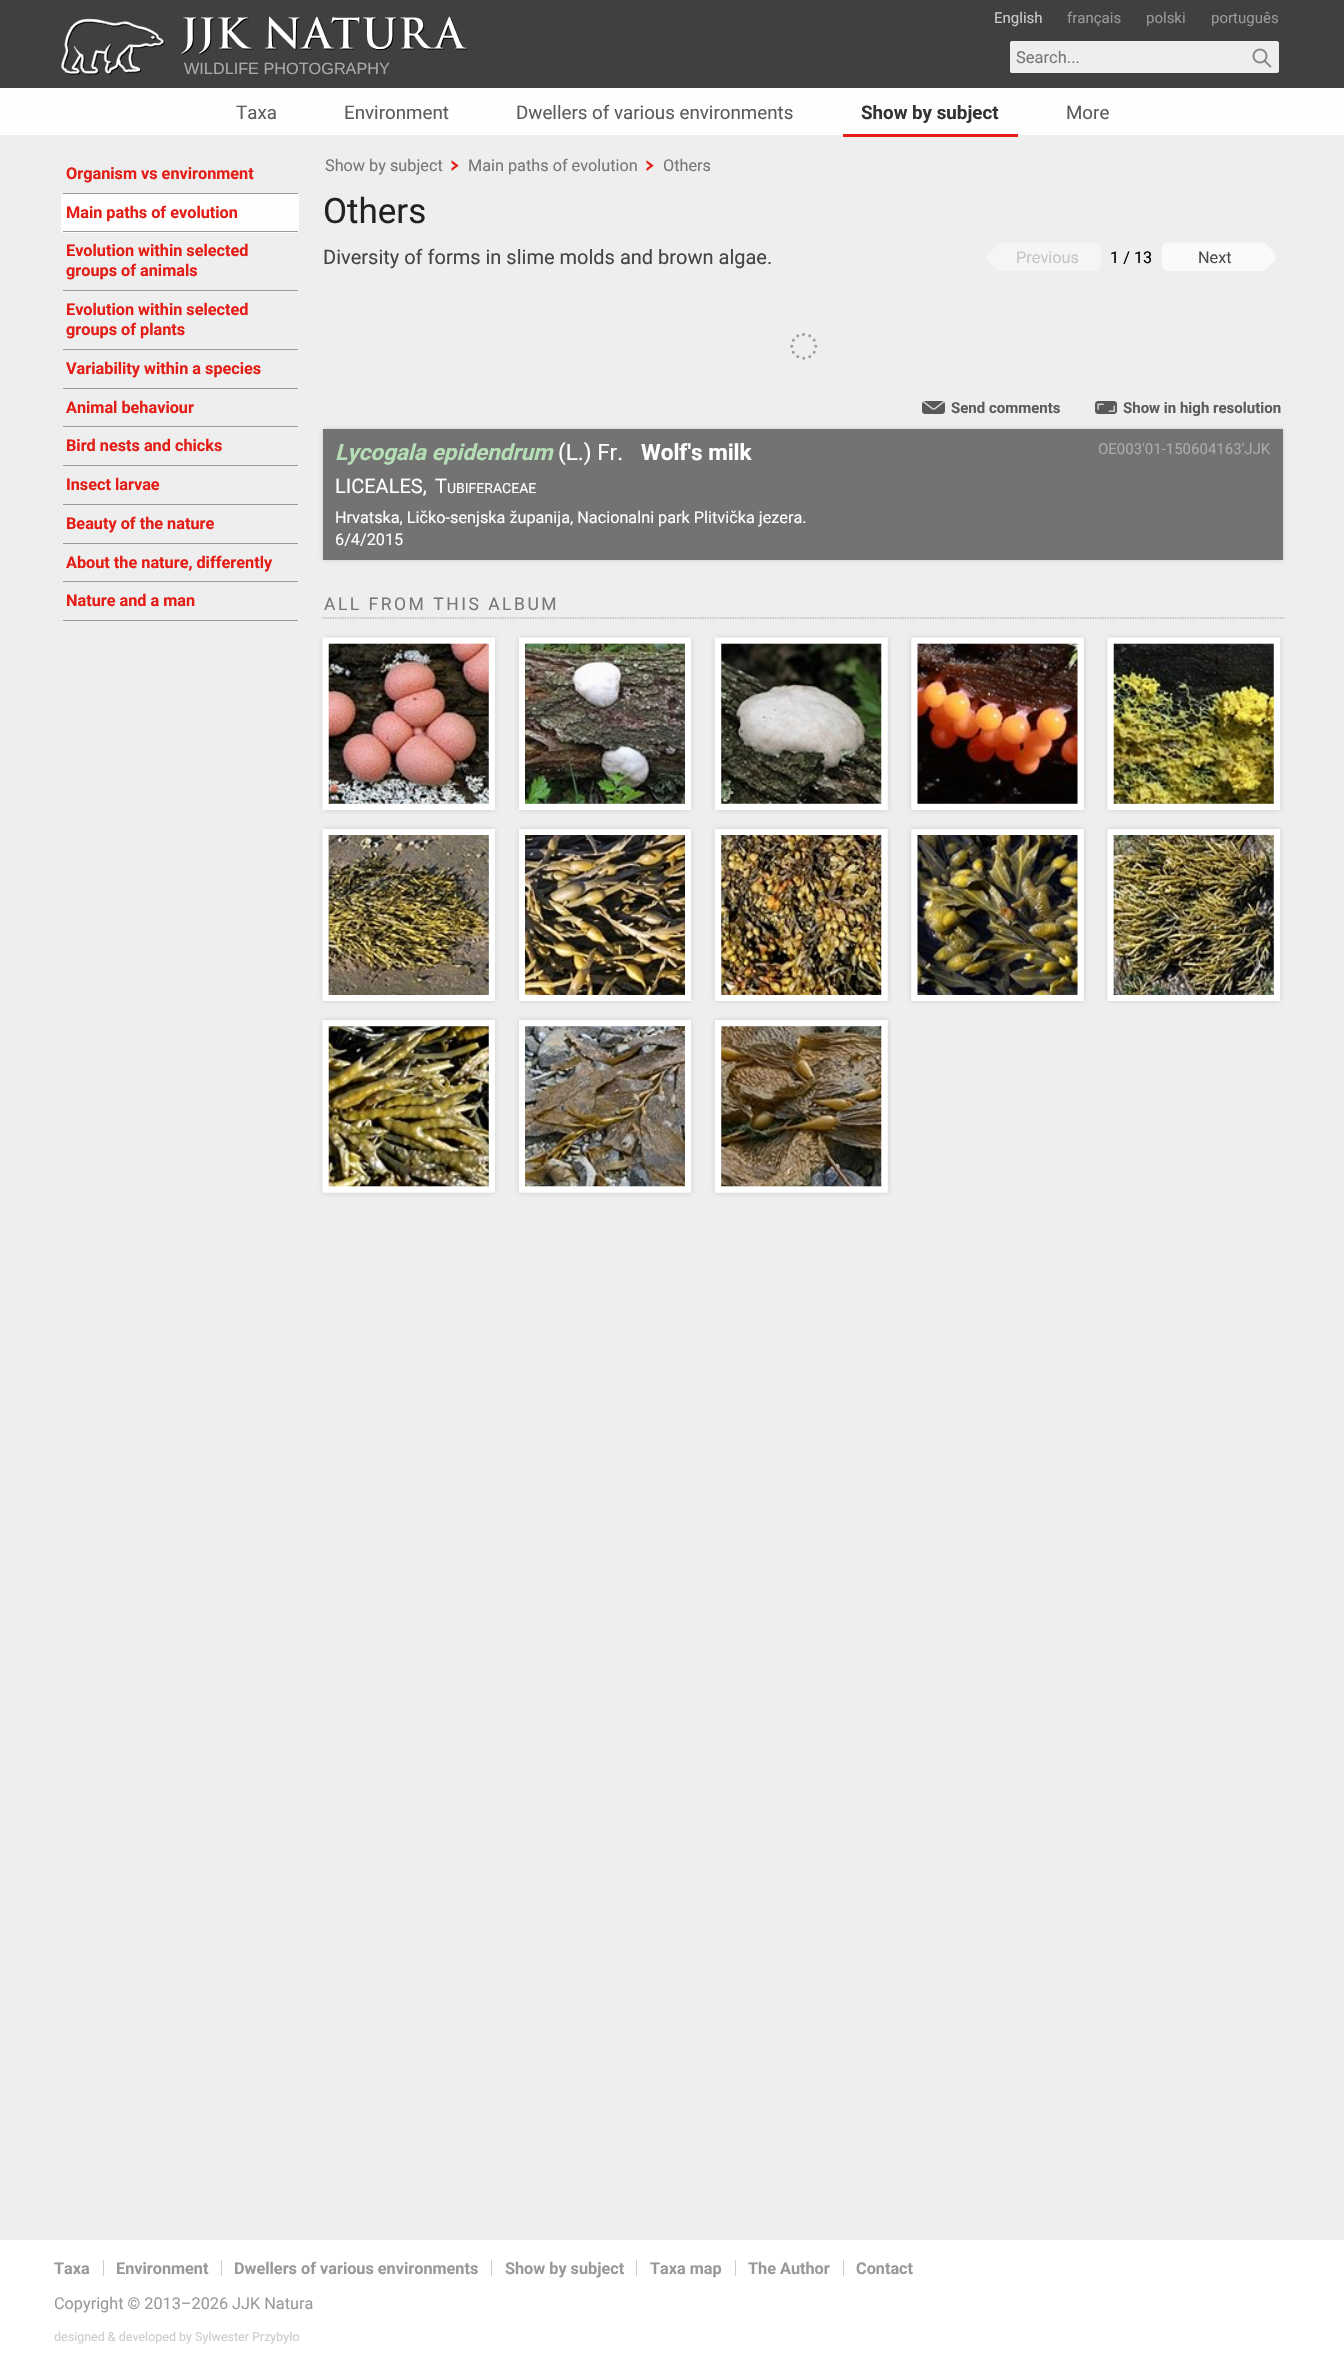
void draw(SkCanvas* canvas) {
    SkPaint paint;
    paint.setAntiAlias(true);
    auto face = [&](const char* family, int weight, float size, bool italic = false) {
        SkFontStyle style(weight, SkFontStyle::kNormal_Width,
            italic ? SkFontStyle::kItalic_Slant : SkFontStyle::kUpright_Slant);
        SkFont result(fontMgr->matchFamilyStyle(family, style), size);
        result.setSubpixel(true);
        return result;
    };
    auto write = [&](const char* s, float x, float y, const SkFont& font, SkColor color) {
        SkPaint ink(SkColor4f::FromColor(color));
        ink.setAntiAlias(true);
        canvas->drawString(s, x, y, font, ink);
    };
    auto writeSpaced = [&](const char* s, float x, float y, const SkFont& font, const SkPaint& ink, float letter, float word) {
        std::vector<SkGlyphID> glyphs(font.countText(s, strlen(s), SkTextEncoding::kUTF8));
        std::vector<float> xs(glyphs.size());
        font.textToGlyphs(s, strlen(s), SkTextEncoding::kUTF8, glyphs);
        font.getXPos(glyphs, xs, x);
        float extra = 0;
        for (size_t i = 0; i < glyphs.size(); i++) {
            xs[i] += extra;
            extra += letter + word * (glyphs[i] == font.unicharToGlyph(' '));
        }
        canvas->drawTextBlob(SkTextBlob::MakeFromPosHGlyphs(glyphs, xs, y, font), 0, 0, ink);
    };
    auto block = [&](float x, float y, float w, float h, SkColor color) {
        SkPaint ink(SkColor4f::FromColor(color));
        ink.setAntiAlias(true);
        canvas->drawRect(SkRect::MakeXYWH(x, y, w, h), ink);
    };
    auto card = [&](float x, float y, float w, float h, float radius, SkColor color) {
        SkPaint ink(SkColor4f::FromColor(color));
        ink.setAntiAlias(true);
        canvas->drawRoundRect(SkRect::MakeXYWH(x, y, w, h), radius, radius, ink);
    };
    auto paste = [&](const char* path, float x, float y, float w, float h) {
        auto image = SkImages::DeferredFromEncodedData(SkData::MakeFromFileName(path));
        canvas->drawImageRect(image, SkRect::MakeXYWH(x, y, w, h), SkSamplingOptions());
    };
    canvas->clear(SkColorSetRGB(238, 238, 238));
    block(0, 0, 1344, 88, SkColorSetRGB(64, 64, 64));
    auto kFont1 = face("Roboto", 400, 15);
    write("English", 994, 23, kFont1, SkColorSetRGB(204, 204, 204));
    write("français", 1067, 23, kFont1, SkColorSetRGB(153, 153, 153));
    write("polski", 1146, 23, kFont1, SkColorSetRGB(153, 153, 153));
    write("português", 1211, 23, kFont1, SkColorSetRGB(153, 153, 153));
    card(1010, 41, 269, 32, 2.5f, SkColorSetRGB(238, 238, 238));
    card(1010, 41, 235, 32, 2.5f, SkColorSetARGB(204, 238, 238, 238));
    auto kFont2 = face("Roboto", 400, 16.5f);
    write("Search...", 1016, 63, kFont2, SkColorSetRGB(119, 119, 119));
    paste("pic1.png", 1252, 48, 20, 20);
    paste("pic2.png", 61, 16, 407, 59);
    auto kFont3 = face("Liberation Sans", 400, 16.25f);
    write("WILDLIFE PHOTOGRAPHY", 184, 74, kFont3, SkColorSetRGB(170, 170, 170));
    block(0, 88, 1344, 47, SkColorSetRGB(254, 254, 254));
    auto kFont4 = face("Roboto", 400, 18.75f);
    write("Taxa", 236, 119, kFont4, SkColorSetRGB(92, 92, 92));
    write("Environment", 344, 119, kFont4, SkColorSetRGB(92, 92, 92));
    write("Dwellers of various environments", 516, 119, kFont4, SkColorSetRGB(92, 92, 92));
    block(843, 134, 175, 3, SkColorSetRGB(228, 30, 22));
    auto kFont5 = face("Roboto", 700, 18.75f);
    write("Show by subject", 861, 119, kFont5, SkColorSetRGB(51, 51, 51));
    write("More", 1066, 119, kFont4, SkColorSetRGB(92, 92, 92));
    block(63, 193, 235, 1, SkColorSetRGB(153, 153, 153));
    auto kFont6 = face("Roboto", 700, 16.25f);
    write("Organism vs environment", 66, 179, kFont6, SkColorSetRGB(228, 30, 22));
    card(61, 194, 238, 39, 2.5f, SkColorSetRGB(254, 254, 254));
    block(63, 231, 235, 1, SkColorSetRGB(153, 153, 153));
    write("Main paths of evolution", 66, 218, kFont6, SkColorSetRGB(228, 30, 22));
    block(63, 290, 235, 1, SkColorSetRGB(153, 153, 153));
    write("Evolution within selected", 66, 256, kFont6, SkColorSetRGB(228, 30, 22));
    write("groups of animals", 66, 276, kFont6, SkColorSetRGB(228, 30, 22));
    block(63, 349, 235, 1, SkColorSetRGB(153, 153, 153));
    write("Evolution within selected", 66, 315, kFont6, SkColorSetRGB(228, 30, 22));
    write("groups of plants", 66, 335, kFont6, SkColorSetRGB(228, 30, 22));
    block(63, 388, 235, 1, SkColorSetRGB(153, 153, 153));
    write("Variability within a species", 66, 374, kFont6, SkColorSetRGB(228, 30, 22));
    block(63, 426, 235, 1, SkColorSetRGB(153, 153, 153));
    write("Animal behaviour", 66, 413, kFont6, SkColorSetRGB(228, 30, 22));
    block(63, 465, 235, 1, SkColorSetRGB(153, 153, 153));
    write("Bird nests and chicks", 66, 451, kFont6, SkColorSetRGB(228, 30, 22));
    block(63, 504, 235, 1, SkColorSetRGB(153, 153, 153));
    write("Insect larvae", 66, 490, kFont6, SkColorSetRGB(228, 30, 22));
    block(63, 543, 235, 1, SkColorSetRGB(153, 153, 153));
    write("Beauty of the nature", 66, 529, kFont6, SkColorSetRGB(228, 30, 22));
    block(63, 581, 235, 1, SkColorSetRGB(153, 153, 153));
    write("About the nature, differently", 66, 568, kFont6, SkColorSetRGB(228, 30, 22));
    block(63, 620, 235, 1, SkColorSetRGB(153, 153, 153));
    write("Nature and a man", 66, 606, kFont6, SkColorSetRGB(228, 30, 22));
    auto kFont7 = face("Roboto", 400, 16.25f);
    write("Show by subject", 325, 171, kFont7, SkColorSetRGB(119, 119, 119));
    paste("pic3.png", 451, 160, 8, 11);
    write("Main paths of evolution", 468, 171, kFont7, SkColorSetRGB(119, 119, 119));
    paste("pic3.png", 646, 160, 8, 11);
    write("Others", 663, 171, kFont7, SkColorSetRGB(119, 119, 119));
    auto kFont8 = face("Roboto", 400, 35);
    write("Others", 323, 223, kFont8, SkColorSetRGB(34, 34, 34));
    auto kFont9 = face("Roboto", 400, 20);
    write("Diversity of forms in slime molds and brown algae.", 323, 264, kFont9, SkColorSetRGB(68, 68, 68));
    paste("pic4.png", 987, 243, 114, 28);
    write("Previous", 1016, 263, kFont7, SkColorSetRGB(198, 198, 198));
    write("1 / 13", 1110, 263, kFont7, SK_ColorBLACK);
    paste("pic5.png", 1162, 242, 114, 29);
    write("Next", 1198, 263, kFont7, SkColorSetRGB(75, 75, 75));
    paste("pic6.png", 790, 333, 28, 27);
    paste("pic7.png", 922, 401, 23, 13);
    auto kFont10 = face("Roboto", 700, 15);
    write("Send comments", 951, 413, kFont10, SkColorSetRGB(92, 92, 92));
    paste("pic8.png", 1095, 401, 22, 13);
    write("Show in high resolution", 1123, 413, kFont10, SkColorSetRGB(92, 92, 92));
    paint.setColor(SkColorSetARGB(77, 119, 119, 119));
    paint.setMaskFilter(SkMaskFilter::MakeBlur(kNormal_SkBlurStyle, 2.5f));
    canvas->drawRect(SkRect::MakeXYWH(323, 429, 960, 131), paint);
    paint.setMaskFilter(nullptr);
    block(323, 429, 960, 131, SkColorSetRGB(115, 115, 115));
    auto kFont11 = face("Roboto", 700, 22.5f, true);
    write("Lycogala epidendrum", 335, 460, kFont11, SkColorSetRGB(182, 222, 182));
    auto kFont12 = face("Roboto", 400, 22.5f);
    write("(L.) Fr.", 558, 460, kFont12, SK_ColorWHITE);
    auto kFont13 = face("Roboto", 700, 22.5f);
    write("Wolf's milk", 641, 460, kFont13, SK_ColorWHITE);
    write("OE003'01-150604163'JJK", 1098, 454, kFont1, SkColorSetRGB(170, 170, 170));
    write("LICEALES,", 335, 493, kFont9, SK_ColorWHITE);
    write("T", 435, 493, kFont9, SK_ColorWHITE);
    auto kFont14 = face("Roboto", 400, 14);
    write("UBIFERACEAE", 447, 493, kFont14, SK_ColorWHITE);
    write("Hrvatska, Ličko-senjska županija, Nacionalni park Plitvička jezera.", 335, 523, kFont7, SK_ColorWHITE);
    write("6/4/2015", 335, 545, kFont7, SK_ColorWHITE);
    paint.setStyle(SkPaint::kStroke_Style);
    paint.setStrokeWidth(1.2f);
    paint.setColor(SkColorSetRGB(153, 153, 153));
    paint.setPathEffect(SkDashPathEffect::Make({{1.25f, 1.25f}}, 0));
    canvas->drawPath(SkPathBuilder().moveTo(322.5f, 618).lineTo(1285, 618).detach(), paint);
    paint.setPathEffect(nullptr);
    auto kFont15 = face("Roboto", 400, 17.5f);
    paint.setStyle(SkPaint::kFill_Style);
    paint.setColor(SkColorSetRGB(119, 119, 119));
    writeSpaced("ALL FROM THIS ALBUM", 324, 610, kFont15, paint, 2.5f, 0);
    paint.setColor(SkColorSetARGB(77, 119, 119, 119));
    paint.setMaskFilter(SkMaskFilter::MakeBlur(kNormal_SkBlurStyle, 2.5f));
    canvas->drawRoundRect(SkRect::MakeXYWH(323, 638, 172, 172), 2.5f, 2.5f, paint);
    paint.setMaskFilter(nullptr);
    block(328, 643, 161, 161, SkColorSetRGB(238, 238, 238));
    paint.setStyle(SkPaint::kStroke_Style);
    paint.setStrokeWidth(6.2f);
    paint.setColor(SK_ColorWHITE);
    canvas->drawPath(SkPathBuilder().moveTo(325.5f, 640.5f).lineTo(492, 640.5f).lineTo(492, 807).lineTo(325.5f, 807).close().detach(), paint);
    paste("pic9.png", 328, 643, 161, 161);
    paint.setStyle(SkPaint::kFill_Style);
    paint.setColor(SkColorSetARGB(77, 119, 119, 119));
    paint.setMaskFilter(SkMaskFilter::MakeBlur(kNormal_SkBlurStyle, 2.5f));
    canvas->drawRoundRect(SkRect::MakeXYWH(519, 638, 172, 172), 2.5f, 2.5f, paint);
    paint.setMaskFilter(nullptr);
    paint.setStyle(SkPaint::kStroke_Style);
    paint.setColor(SK_ColorWHITE);
    canvas->drawPath(SkPathBuilder().moveTo(522, 640.5f).lineTo(688, 640.5f).lineTo(688, 807).lineTo(522, 807).close().detach(), paint);
    paste("pic10.png", 525, 643, 160, 161);
    paint.setStyle(SkPaint::kFill_Style);
    paint.setColor(SkColorSetARGB(77, 119, 119, 119));
    paint.setMaskFilter(SkMaskFilter::MakeBlur(kNormal_SkBlurStyle, 2.5f));
    canvas->drawRoundRect(SkRect::MakeXYWH(715, 638, 173, 172), 2.5f, 2.5f, paint);
    paint.setMaskFilter(nullptr);
    card(715, 638, 173, 172, 2.5f, SkColorSetRGB(238, 238, 238));
    paint.setStyle(SkPaint::kStroke_Style);
    paint.setColor(SK_ColorWHITE);
    canvas->drawPath(SkPathBuilder().moveTo(718, 640.5f).lineTo(884.5f, 640.5f).lineTo(884.5f, 807).lineTo(718, 807).close().detach(), paint);
    paste("pic11.png", 721, 643, 161, 161);
    paint.setStyle(SkPaint::kFill_Style);
    paint.setColor(SkColorSetARGB(77, 119, 119, 119));
    paint.setMaskFilter(SkMaskFilter::MakeBlur(kNormal_SkBlurStyle, 2.5f));
    canvas->drawRoundRect(SkRect::MakeXYWH(911, 638, 173, 172), 2.5f, 2.5f, paint);
    paint.setMaskFilter(nullptr);
    card(911, 638, 173, 172, 2.5f, SkColorSetRGB(238, 238, 238));
    paint.setStyle(SkPaint::kStroke_Style);
    paint.setColor(SK_ColorWHITE);
    canvas->drawPath(SkPathBuilder().moveTo(914.5f, 640.5f).lineTo(1080.5f, 640.5f).lineTo(1080.5f, 807).lineTo(914.5f, 807).close().detach(), paint);
    paste("pic12.png", 917, 643, 161, 161);
    paint.setStyle(SkPaint::kFill_Style);
    paint.setColor(SkColorSetARGB(77, 119, 119, 119));
    paint.setMaskFilter(SkMaskFilter::MakeBlur(kNormal_SkBlurStyle, 2.5f));
    canvas->drawRoundRect(SkRect::MakeXYWH(1108, 638, 172, 172), 2.5f, 2.5f, paint);
    paint.setMaskFilter(nullptr);
    block(1113, 643, 161, 161, SkColorSetRGB(238, 238, 238));
    paint.setStyle(SkPaint::kStroke_Style);
    paint.setColor(SK_ColorWHITE);
    canvas->drawPath(SkPathBuilder().moveTo(1110.5f, 640.5f).lineTo(1277, 640.5f).lineTo(1277, 807).lineTo(1110.5f, 807).close().detach(), paint);
    paste("pic13.png", 1113, 643, 161, 161);
    paint.setStyle(SkPaint::kFill_Style);
    paint.setColor(SkColorSetARGB(77, 119, 119, 119));
    paint.setMaskFilter(SkMaskFilter::MakeBlur(kNormal_SkBlurStyle, 2.5f));
    canvas->drawRoundRect(SkRect::MakeXYWH(323, 829, 172, 172), 2.5f, 2.5f, paint);
    paint.setMaskFilter(nullptr);
    paint.setStyle(SkPaint::kStroke_Style);
    paint.setColor(SK_ColorWHITE);
    canvas->drawPath(SkPathBuilder().moveTo(325.5f, 832).lineTo(492, 832).lineTo(492, 998).lineTo(325.5f, 998).close().detach(), paint);
    paste("pic14.png", 328, 835, 161, 160);
    paint.setStyle(SkPaint::kFill_Style);
    paint.setColor(SkColorSetARGB(77, 119, 119, 119));
    paint.setMaskFilter(SkMaskFilter::MakeBlur(kNormal_SkBlurStyle, 2.5f));
    canvas->drawRoundRect(SkRect::MakeXYWH(519, 829, 172, 172), 2.5f, 2.5f, paint);
    paint.setMaskFilter(nullptr);
    paint.setStyle(SkPaint::kStroke_Style);
    paint.setColor(SK_ColorWHITE);
    canvas->drawPath(SkPathBuilder().moveTo(522, 832).lineTo(688, 832).lineTo(688, 998).lineTo(522, 998).close().detach(), paint);
    paste("pic15.png", 525, 835, 160, 160);
    paint.setStyle(SkPaint::kFill_Style);
    paint.setColor(SkColorSetARGB(77, 119, 119, 119));
    paint.setMaskFilter(SkMaskFilter::MakeBlur(kNormal_SkBlurStyle, 2.5f));
    canvas->drawRoundRect(SkRect::MakeXYWH(715, 829, 173, 172), 2.5f, 2.5f, paint);
    paint.setMaskFilter(nullptr);
    card(715, 829, 173, 172, 2.5f, SkColorSetRGB(238, 238, 238));
    paint.setStyle(SkPaint::kStroke_Style);
    paint.setColor(SK_ColorWHITE);
    canvas->drawPath(SkPathBuilder().moveTo(718, 832).lineTo(884.5f, 832).lineTo(884.5f, 998).lineTo(718, 998).close().detach(), paint);
    paste("pic16.png", 721, 835, 161, 160);
    paint.setStyle(SkPaint::kFill_Style);
    paint.setColor(SkColorSetARGB(77, 119, 119, 119));
    paint.setMaskFilter(SkMaskFilter::MakeBlur(kNormal_SkBlurStyle, 2.5f));
    canvas->drawRoundRect(SkRect::MakeXYWH(911, 829, 173, 172), 2.5f, 2.5f, paint);
    paint.setMaskFilter(nullptr);
    card(911, 829, 173, 172, 2.5f, SkColorSetRGB(238, 238, 238));
    paint.setStyle(SkPaint::kStroke_Style);
    paint.setColor(SK_ColorWHITE);
    canvas->drawPath(SkPathBuilder().moveTo(914.5f, 832).lineTo(1080.5f, 832).lineTo(1080.5f, 998).lineTo(914.5f, 998).close().detach(), paint);
    paste("pic17.png", 917, 835, 161, 160);
    paint.setStyle(SkPaint::kFill_Style);
    paint.setColor(SkColorSetARGB(77, 119, 119, 119));
    paint.setMaskFilter(SkMaskFilter::MakeBlur(kNormal_SkBlurStyle, 2.5f));
    canvas->drawRoundRect(SkRect::MakeXYWH(1108, 829, 172, 172), 2.5f, 2.5f, paint);
    paint.setMaskFilter(nullptr);
    paint.setStyle(SkPaint::kStroke_Style);
    paint.setColor(SK_ColorWHITE);
    canvas->drawPath(SkPathBuilder().moveTo(1110.5f, 832).lineTo(1277, 832).lineTo(1277, 998).lineTo(1110.5f, 998).close().detach(), paint);
    paste("pic18.png", 1113, 835, 161, 160);
    paint.setStyle(SkPaint::kFill_Style);
    paint.setColor(SkColorSetARGB(77, 119, 119, 119));
    paint.setMaskFilter(SkMaskFilter::MakeBlur(kNormal_SkBlurStyle, 2.5f));
    canvas->drawRoundRect(SkRect::MakeXYWH(323, 1020, 172, 173), 2.5f, 2.5f, paint);
    paint.setMaskFilter(nullptr);
    card(323, 1020, 172, 173, 2.5f, SkColorSetRGB(238, 238, 238));
    paint.setStyle(SkPaint::kStroke_Style);
    paint.setColor(SK_ColorWHITE);
    canvas->drawPath(SkPathBuilder().moveTo(325.5f, 1023).lineTo(492, 1023).lineTo(492, 1189.5f).lineTo(325.5f, 1189.5f).close().detach(), paint);
    paste("pic19.png", 328, 1026, 161, 161);
    paint.setStyle(SkPaint::kFill_Style);
    paint.setColor(SkColorSetARGB(77, 119, 119, 119));
    paint.setMaskFilter(SkMaskFilter::MakeBlur(kNormal_SkBlurStyle, 2.5f));
    canvas->drawRoundRect(SkRect::MakeXYWH(519, 1020, 172, 173), 2.5f, 2.5f, paint);
    paint.setMaskFilter(nullptr);
    card(519, 1020, 172, 173, 2.5f, SkColorSetRGB(238, 238, 238));
    paint.setStyle(SkPaint::kStroke_Style);
    paint.setColor(SK_ColorWHITE);
    canvas->drawPath(SkPathBuilder().moveTo(522, 1023).lineTo(688, 1023).lineTo(688, 1189.5f).lineTo(522, 1189.5f).close().detach(), paint);
    paste("pic20.png", 525, 1026, 160, 161);
    paint.setStyle(SkPaint::kFill_Style);
    paint.setColor(SkColorSetARGB(77, 119, 119, 119));
    paint.setMaskFilter(SkMaskFilter::MakeBlur(kNormal_SkBlurStyle, 2.5f));
    canvas->drawRoundRect(SkRect::MakeXYWH(715, 1020, 173, 173), 2.5f, 2.5f, paint);
    paint.setMaskFilter(nullptr);
    card(715, 1020, 173, 173, 2.5f, SkColorSetRGB(238, 238, 238));
    paint.setStyle(SkPaint::kStroke_Style);
    paint.setColor(SK_ColorWHITE);
    canvas->drawPath(SkPathBuilder().moveTo(718, 1023).lineTo(884.5f, 1023).lineTo(884.5f, 1189.5f).lineTo(718, 1189.5f).close().detach(), paint);
    paste("pic21.png", 721, 1026, 161, 161);
    block(0, 2240, 1344, 135, SK_ColorWHITE);
    block(103, 2260, 1, 16, SkColorSetRGB(204, 204, 204));
    write("Taxa", 54, 2274, kFont6, SkColorSetRGB(153, 153, 153));
    block(221, 2260, 1, 16, SkColorSetRGB(204, 204, 204));
    write("Environment", 116, 2274, kFont6, SkColorSetRGB(153, 153, 153));
    block(491, 2260, 1, 16, SkColorSetRGB(204, 204, 204));
    write("Dwellers of various environments", 234, 2274, kFont6, SkColorSetRGB(153, 153, 153));
    block(636, 2260, 1, 16, SkColorSetRGB(204, 204, 204));
    write("Show by subject", 505, 2274, kFont6, SkColorSetRGB(153, 153, 153));
    block(735, 2260, 1, 16, SkColorSetRGB(204, 204, 204));
    write("Taxa map", 650, 2274, kFont6, SkColorSetRGB(153, 153, 153));
    block(843, 2260, 1, 16, SkColorSetRGB(204, 204, 204));
    write("The Author", 748, 2274, kFont6, SkColorSetRGB(153, 153, 153));
    write("Contact", 856, 2274, kFont6, SkColorSetRGB(153, 153, 153));
    write("Copyright © 2013–2026 JJK Natura", 54, 2309, kFont7, SkColorSetRGB(153, 153, 153));
    auto kFont16 = face("Roboto", 400, 12.5f);
    write("designed & developed by Sylwester Przybyło", 54, 2341, kFont16, SkColorSetRGB(204, 204, 204));
}
